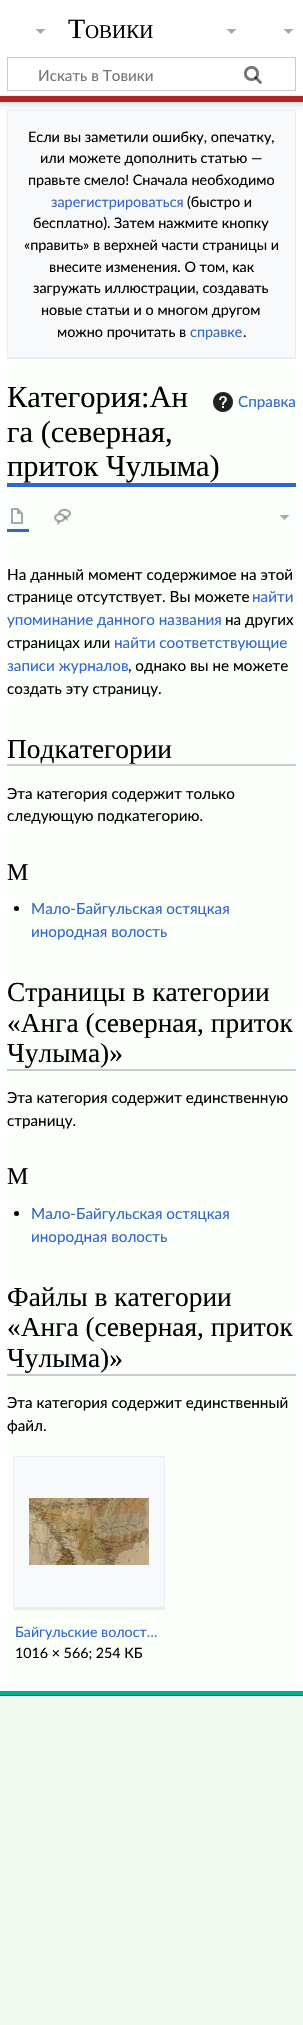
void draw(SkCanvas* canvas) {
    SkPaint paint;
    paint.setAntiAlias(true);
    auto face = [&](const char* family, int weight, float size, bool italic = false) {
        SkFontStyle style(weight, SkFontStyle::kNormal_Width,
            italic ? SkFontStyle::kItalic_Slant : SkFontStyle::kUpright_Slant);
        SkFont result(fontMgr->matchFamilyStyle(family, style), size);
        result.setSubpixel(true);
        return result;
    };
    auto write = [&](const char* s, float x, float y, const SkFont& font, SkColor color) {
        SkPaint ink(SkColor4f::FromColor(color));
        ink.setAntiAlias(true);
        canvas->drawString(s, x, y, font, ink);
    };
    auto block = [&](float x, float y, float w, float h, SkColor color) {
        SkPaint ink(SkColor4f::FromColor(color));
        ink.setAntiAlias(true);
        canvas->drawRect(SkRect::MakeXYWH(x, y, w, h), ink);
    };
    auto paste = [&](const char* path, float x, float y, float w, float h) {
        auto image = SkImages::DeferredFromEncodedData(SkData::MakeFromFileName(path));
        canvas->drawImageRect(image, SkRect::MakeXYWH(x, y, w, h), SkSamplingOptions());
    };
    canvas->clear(SkColorSetRGB(242, 250, 242));
    block(0, 0, 303, 96, SK_ColorWHITE);
    auto kFont1 = face("Liberation Serif", 400, 28);
    write("Т", 68, 38, kFont1, SK_ColorBLACK);
    auto kFont2 = face("Liberation Serif", 400, 19.5f);
    write("ОВИКИ", 85, 38, kFont2, SK_ColorBLACK);
    paint.setColor(SkColorSetRGB(171, 171, 171));
    canvas->drawPath(SkPathBuilder().moveTo(293.5f, 29).lineTo(288.5f, 34).lineTo(283.5f, 29).close().detach(), paint);
    paint.setStyle(SkPaint::kStroke_Style);
    paint.setStrokeWidth(1);
    paint.setColor(SkColorSetRGB(200, 204, 209));
    canvas->drawRect(SkRect::MakeXYWH(7.5f, 57.5f, 288, 33), paint);
    paste("pic1.png", 244, 66, 18, 18);
    auto kFont3 = face("Lato", 400, 15.25f);
    write("Искать в Товики", 38, 81, kFont3, SkColorSetRGB(117, 117, 117));
    paste("pic2.png", 244, 66, 18, 18);
    block(0, 102, 303, 1589, SK_ColorWHITE);
    paint.setStyle(SkPaint::kFill_Style);
    paint.setColor(SkColorSetARGB(51, 0, 0, 0));
    paint.setMaskFilter(SkMaskFilter::MakeBlur(kNormal_SkBlurStyle, 1));
    canvas->drawRect(SkRect::MakeXYWH(0, 96, 303, 6), paint);
    paint.setMaskFilter(nullptr);
    block(8, 111, 287, 246, SkColorSetRGB(248, 249, 250));
    block(7, 110, 289, 1, SkColorSetRGB(234, 236, 240));
    block(295, 110, 1, 249, SkColorSetRGB(234, 236, 240));
    block(7, 357, 289, 2, SkColorSetRGB(234, 236, 240));
    block(7, 110, 1, 249, SkColorSetRGB(234, 236, 240));
    paint.setColor(SkColorSetARGB(18, 0, 0, 0));
    paint.setMaskFilter(SkMaskFilter::MakeBlur(kNormal_SkBlurStyle, 1.5f));
    canvas->drawRect(SkRect::MakeXYWH(-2, 97, 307, 10), paint);
    paint.setMaskFilter(nullptr);
    block(0, 96, 303, 6, SkColorSetRGB(179, 36, 36));
    block(0, 1691, 303, 4, SkColorSetRGB(0, 175, 137));
    paint.setColor(SkColorSetRGB(171, 171, 171));
    canvas->drawPath(SkPathBuilder().moveTo(45.5f, 29).lineTo(40.5f, 34).lineTo(35.5f, 29).close().detach(), paint);
    canvas->drawPath(SkPathBuilder().moveTo(236.5f, 29).lineTo(231.5f, 34).lineTo(226.5f, 29).close().detach(), paint);
    block(7, 359, 289, 1324, SkColorSetRGB(250, 255, 250));
    auto kFont4 = face("Lato", 400, 14.4f);
    write("Если вы заметили ошибку, опечатку,", 28, 142, kFont4, SK_ColorBLACK);
    write("или можете дополнить статью —", 40, 163, kFont4, SK_ColorBLACK);
    write("правьте смело! Сначала необходимо", 28, 185, kFont4, SK_ColorBLACK);
    write("зарегистрироваться", 51, 207, kFont4, SkColorSetRGB(51, 102, 204));
    write("(быстро и", 187, 207, kFont4, SK_ColorBLACK);
    write("бесплатно). Затем нажмите кнопку", 33, 228, kFont4, SK_ColorBLACK);
    write("«править» в верхней части страницы и", 24, 250, kFont4, SK_ColorBLACK);
    write("внесите изменения. О том, как", 49, 272, kFont4, SK_ColorBLACK);
    write("загружать иллюстрации, создавать", 33, 293, kFont4, SK_ColorBLACK);
    write("новые статьи и о многом другом", 41, 315, kFont4, SK_ColorBLACK);
    write("можно прочитать в", 57, 337, kFont4, SK_ColorBLACK);
    write("справке", 190, 337, kFont4, SkColorSetRGB(51, 102, 204));
    write(".", 243, 337, kFont4, SK_ColorBLACK);
    block(7, 483, 289, 4, SkColorSetRGB(51, 102, 204));
    auto kFont5 = face("Liberation Serif", 400, 30.5f);
    write("Категория:Ан", 7, 407, kFont5, SK_ColorBLACK);
    write("га (северная,", 7, 442, kFont5, SK_ColorBLACK);
    write("приток Чулыма)", 7, 476, kFont5, SK_ColorBLACK);
    paste("pic3.png", 213, 392, 20, 20);
    write("Справка", 238, 407, kFont3, SkColorSetRGB(51, 102, 204));
    block(7, 529, 22, 3, SkColorSetRGB(51, 102, 204));
    paste("pic4.png", 11, 508, 12, 16);
    paste("pic5.png", 54, 508, 17, 17);
    paint.setColor(SkColorSetRGB(168, 171, 168));
    canvas->drawPath(SkPathBuilder().moveTo(289.5f, 515).lineTo(284.5f, 520).lineTo(279.5f, 515).close().detach(), paint);
    write("На данный момент содержимое на этой", 7, 580, kFont3, SK_ColorBLACK);
    write("странице отсутствует. Вы можете", 7, 602, kFont3, SK_ColorBLACK);
    write("найти", 252, 602, kFont3, SkColorSetRGB(51, 102, 204));
    write("упоминание данного названия", 7, 625, kFont3, SkColorSetRGB(51, 102, 204));
    write("на других", 225, 625, kFont3, SK_ColorBLACK);
    write("страницах или", 7, 648, kFont3, SK_ColorBLACK);
    write("найти соответствующие", 114, 648, kFont3, SkColorSetRGB(51, 102, 204));
    write("записи журналов", 7, 671, kFont3, SkColorSetRGB(51, 102, 204));
    write(", однако вы не можете", 128, 671, kFont3, SK_ColorBLACK);
    write("создать эту страницу.", 7, 694, kFont3, SK_ColorBLACK);
    block(7, 764, 289, 2, SkColorSetRGB(200, 204, 209));
    auto kFont6 = face("Liberation Serif", 400, 27.4f);
    write("Подкатегории", 7, 758, kFont6, SK_ColorBLACK);
    write("Эта категория содержит только", 7, 799, kFont3, SK_ColorBLACK);
    write("следующую подкатегорию.", 7, 821, kFont3, SK_ColorBLACK);
    auto kFont7 = face("Liberation Serif", 400, 24);
    write("М", 7, 880, kFont7, SK_ColorBLACK);
    paint.setColor(SK_ColorBLACK);
    canvas->drawCircle(16.5f, 908.5f, 2.5f, paint);
    write("Мало-Байгульская остяцкая", 31, 914, kFont3, SkColorSetRGB(51, 102, 204));
    write("инородная волость", 31, 937, kFont3, SkColorSetRGB(51, 102, 204));
    block(7, 1069, 289, 2, SkColorSetRGB(200, 204, 209));
    write("Страницы в категории", 7, 1001, kFont6, SK_ColorBLACK);
    write("«Анга (северная, приток", 7, 1032, kFont6, SK_ColorBLACK);
    write("Чулыма)»", 7, 1062, kFont6, SK_ColorBLACK);
    write("Эта категория содержит единственную", 7, 1103, kFont3, SK_ColorBLACK);
    write("страницу.", 7, 1126, kFont3, SK_ColorBLACK);
    write("М", 7, 1184, kFont7, SK_ColorBLACK);
    canvas->drawCircle(16.5f, 1213.5f, 2.5f, paint);
    write("Мало-Байгульская остяцкая", 31, 1219, kFont3, SkColorSetRGB(51, 102, 204));
    write("инородная волость", 31, 1242, kFont3, SkColorSetRGB(51, 102, 204));
    block(7, 1374, 289, 2, SkColorSetRGB(200, 204, 209));
    write("Файлы в категории", 7, 1306, kFont6, SK_ColorBLACK);
    write("«Анга (северная, приток", 7, 1336, kFont6, SK_ColorBLACK);
    write("Чулыма)»", 7, 1367, kFont6, SK_ColorBLACK);
    write("Эта категория содержит единственный", 7, 1408, kFont3, SK_ColorBLACK);
    write("файл.", 7, 1431, kFont3, SK_ColorBLACK);
    block(14, 1457, 150, 150, SkColorSetRGB(248, 249, 250));
    block(13, 1456, 152, 1, SkColorSetRGB(234, 236, 240));
    block(164, 1456, 1, 154, SkColorSetRGB(234, 236, 240));
    block(13, 1607, 152, 3, SkColorSetRGB(234, 236, 240));
    block(13, 1456, 1, 154, SkColorSetRGB(234, 236, 240));
    paste("pic6.png", 29, 1498, 120, 67);
    auto kFont8 = face("Lato", 400, 14.25f);
    write("Байгульские волост…", 15, 1637, kFont8, SkColorSetRGB(51, 102, 204));
    write("1016 × 566; 254 КБ", 15, 1658, kFont8, SK_ColorBLACK);
    block(0, 1695, 303, 1, SkColorSetRGB(84, 89, 93));
}
